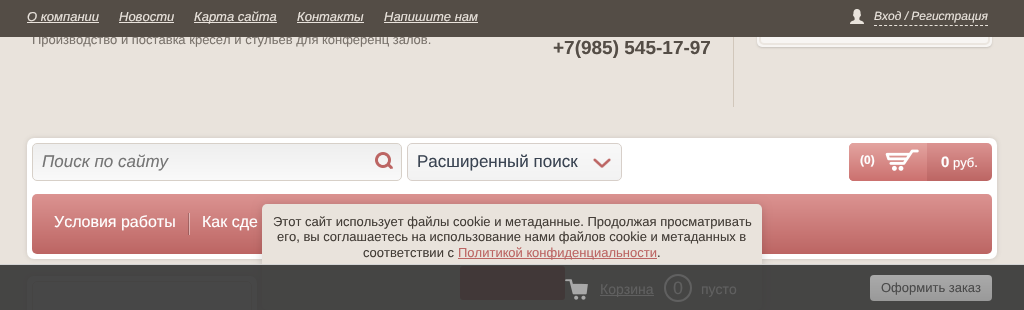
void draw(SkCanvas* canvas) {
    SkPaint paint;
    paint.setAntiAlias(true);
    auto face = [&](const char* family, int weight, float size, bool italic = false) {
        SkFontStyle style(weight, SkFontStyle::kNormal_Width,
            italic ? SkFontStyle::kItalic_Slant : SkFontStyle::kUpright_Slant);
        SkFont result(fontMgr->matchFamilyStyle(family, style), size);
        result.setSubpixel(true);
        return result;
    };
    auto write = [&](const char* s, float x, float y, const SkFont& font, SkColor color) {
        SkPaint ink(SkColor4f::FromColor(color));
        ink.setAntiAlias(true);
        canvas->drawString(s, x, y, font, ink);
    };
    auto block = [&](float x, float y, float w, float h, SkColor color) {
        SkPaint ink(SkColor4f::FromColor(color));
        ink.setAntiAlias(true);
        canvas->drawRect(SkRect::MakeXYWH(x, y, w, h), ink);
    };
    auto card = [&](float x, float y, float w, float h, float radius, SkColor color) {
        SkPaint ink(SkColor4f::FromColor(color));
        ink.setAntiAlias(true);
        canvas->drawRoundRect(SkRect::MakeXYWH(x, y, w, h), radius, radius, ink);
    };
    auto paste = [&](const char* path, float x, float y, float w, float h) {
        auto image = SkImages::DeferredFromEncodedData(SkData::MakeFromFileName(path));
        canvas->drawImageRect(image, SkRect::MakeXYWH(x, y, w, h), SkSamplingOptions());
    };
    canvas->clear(SkColorSetRGB(233, 227, 220));
    auto kFont1 = face("Liberation Sans", 400, 13);
    write("Производство и поставка кресел и стульев для конференц залов.", 32, 44, kFont1, SkColorSetRGB(122, 115, 108));
    paint.setColor(SkColorSetARGB(36, 0, 0, 0));
    paint.setMaskFilter(SkMaskFilter::MakeBlur(kNormal_SkBlurStyle, 1));
    canvas->drawRoundRect(SkRect::MakeXYWH(757, 6, 235, 42), 5, 5, paint);
    paint.setMaskFilter(nullptr);
    card(757, 5, 235, 42, 5, SkColorSetRGB(247, 245, 243));
    paint.setStyle(SkPaint::kStroke_Style);
    paint.setStrokeWidth(2);
    paint.setColor(SkColorSetRGB(235, 230, 224));
    canvas->drawRoundRect(SkRect::MakeXYWH(760, 8, 229, 36), 4, 4, paint);
    block(0, 0, 1024, 37, SkColorSetRGB(84, 77, 70));
    auto kFont2 = face("Liberation Sans", 400, 13, true);
    write("О компании", 27, 21, kFont2, SkColorSetRGB(233, 227, 220));
    block(27, 22, 72, 1, SkColorSetRGB(233, 227, 220));
    write("Новости", 119, 21, kFont2, SkColorSetRGB(233, 227, 220));
    block(119, 22, 55, 1, SkColorSetRGB(233, 227, 220));
    block(194, 22, 83, 1, SkColorSetRGB(233, 227, 220));
    write("Карта сайта", 194, 21, kFont2, SkColorSetRGB(233, 227, 220));
    write("Контакты", 297, 21, kFont2, SkColorSetRGB(233, 227, 220));
    block(297, 22, 67, 1, SkColorSetRGB(233, 227, 220));
    write("Напишите нам", 384, 21, kFont2, SkColorSetRGB(233, 227, 220));
    block(384, 22, 94, 1, SkColorSetRGB(233, 227, 220));
    paste("pic1.png", 850, 9, 14, 15);
    paint.setStrokeWidth(1);
    paint.setColor(SkColorSetRGB(233, 227, 220));
    paint.setPathEffect(SkDashPathEffect::Make({{3, 2.05f}}, 0));
    canvas->drawPath(SkPathBuilder().moveTo(874, 25.5f).lineTo(988, 25.5f).detach(), paint);
    paint.setPathEffect(nullptr);
    auto kFont3 = face("Liberation Sans", 400, 12, true);
    write("Вход / Регистрация", 874, 20, kFont3, SkColorSetRGB(233, 227, 220));
    block(733, 37, 1, 70, SkColorSetRGB(209, 199, 187));
    auto kFont4 = face("Liberation Sans", 700, 19);
    write("+7(985) 545-17-97", 553, 54, kFont4, SkColorSetRGB(84, 77, 70));
    paint.setStyle(SkPaint::kFill_Style);
    paint.setColor(SkColorSetARGB(48, 84, 77, 70));
    paint.setMaskFilter(SkMaskFilter::MakeBlur(kNormal_SkBlurStyle, 2.5f));
    canvas->drawRoundRect(SkRect::MakeXYWH(27, 138, 970, 121), 7, 7, paint);
    paint.setMaskFilter(nullptr);
    card(27, 138, 970, 121, 7, SK_ColorWHITE);
    {
        const SkColor colors[] = {SkColorSetRGB(238, 238, 238), SkColorSetRGB(249, 249, 249)};
        const float stops[] = {0, 1};
        const SkPoint ends[] = {{217, 144}, {217, 180}};
        paint.setShader(SkGradientShader::MakeLinear(ends, colors, stops, 2, SkTileMode::kClamp));
        paint.setAlpha(255);
    }
    canvas->drawRoundRect(SkRect::MakeXYWH(33, 144, 368, 36), 4, 4, paint);
    paint.setStyle(SkPaint::kStroke_Style);
    paint.setShader(nullptr);
    paint.setColor(SkColorSetRGB(215, 208, 200));
    canvas->drawRoundRect(SkRect::MakeXYWH(32.5f, 143.5f, 369, 37), 4.5f, 4.5f, paint);
    auto kFont5 = face("Liberation Sans", 400, 17, true);
    write("Поиск по сайту", 42, 167, kFont5, SkColorSetRGB(117, 117, 117));
    paste("pic2.png", 375, 152, 18, 17);
    paint.setStyle(SkPaint::kFill_Style);
    {
        const SkColor colors[] = {SkColorSetRGB(248, 248, 248), SkColorSetRGB(242, 242, 242)};
        const float stops[] = {0, 1};
        const SkPoint ends[] = {{515, 144}, {515, 180}};
        paint.setShader(SkGradientShader::MakeLinear(ends, colors, stops, 2, SkTileMode::kClamp));
        paint.setAlpha(255);
    }
    canvas->drawRoundRect(SkRect::MakeXYWH(408, 144, 213, 36), 4, 4, paint);
    paint.setStyle(SkPaint::kStroke_Style);
    paint.setShader(nullptr);
    paint.setColor(SkColorSetRGB(215, 207, 201));
    canvas->drawRoundRect(SkRect::MakeXYWH(407.5f, 143.5f, 214, 37), 4.5f, 4.5f, paint);
    auto kFont6 = face("Liberation Sans", 400, 17);
    write("Расширенный поиск", 417, 167, kFont6, SkColorSetRGB(58, 68, 82));
    paste("pic3.png", 593, 158, 18, 10);
    paint.setStyle(SkPaint::kFill_Style);
    {
        const SkColor colors[] = {SkColorSetRGB(219, 147, 145), SkColorSetRGB(188, 101, 99)};
        const float stops[] = {0, 1};
        const SkPoint ends[] = {{921, 143}, {921, 181}};
        paint.setShader(SkGradientShader::MakeLinear(ends, colors, stops, 2, SkTileMode::kClamp));
        paint.setAlpha(255);
    }
    canvas->drawRoundRect(SkRect::MakeXYWH(849, 143, 143, 38), 5, 5, paint);
    {
        const SkColor colors[] = {SkColorSetRGB(227, 164, 160), SkColorSetRGB(203, 112, 110)};
        const float stops[] = {0, 1};
        const SkPoint ends[] = {{888, 143}, {888, 181}};
        paint.setShader(SkGradientShader::MakeLinear(ends, colors, stops, 2, SkTileMode::kClamp));
        paint.setAlpha(255);
    }
    canvas->drawPath(SkPathBuilder().moveTo(854, 143).lineTo(927, 143).lineTo(927, 181).lineTo(854, 181).cubicTo(851, 181, 849, 179, 849, 176).lineTo(849, 148).cubicTo(849, 145, 851, 143, 854, 143).close().detach(), paint);
    auto kFont7 = face("Liberation Sans", 700, 12);
    write("(0)", 860, 164, kFont7, SK_ColorWHITE);
    paste("pic4.png", 885, 149, 34, 22);
    auto kFont8 = face("Liberation Sans", 700, 15);
    write("0", 941, 167, kFont8, SK_ColorWHITE);
    write("руб.", 953, 167, kFont1, SK_ColorWHITE);
    {
        const SkColor colors[] = {SkColorSetRGB(219, 147, 145), SkColorSetRGB(188, 101, 99)};
        const float stops[] = {0, 1};
        const SkPoint ends[] = {{512, 194}, {512, 254}};
        paint.setShader(SkGradientShader::MakeLinear(ends, colors, stops, 2, SkTileMode::kClamp));
        paint.setAlpha(255);
    }
    canvas->drawRoundRect(SkRect::MakeXYWH(32, 194, 960, 60), 5, 5, paint);
    {
        const SkColor colors[] = {SkColorSetRGB(173, 116, 115), SkColorSetRGB(149, 80, 78)};
        const float stops[] = {0, 1};
        const SkPoint ends[] = {{512, 194}, {512, 254}};
        paint.setShader(SkGradientShader::MakeLinear(ends, colors, stops, 2, SkTileMode::kClamp));
        paint.setAlpha(255);
    }
    canvas->drawRect(SkRect::MakeXYWH(188, 213, 1, 22), paint);
    {
        const SkColor colors[] = {SkColorSetRGB(234, 193, 192), SkColorSetRGB(217, 167, 166)};
        const float stops[] = {0, 1};
        const SkPoint ends[] = {{512, 194}, {512, 254}};
        paint.setShader(SkGradientShader::MakeLinear(ends, colors, stops, 2, SkTileMode::kClamp));
        paint.setAlpha(255);
    }
    canvas->drawRect(SkRect::MakeXYWH(189, 213, 1, 22), paint);
    auto kFont9 = face("Liberation Sans", 400, 16);
    write("Условия работы", 54, 227, kFont9, SK_ColorWHITE);
    write("Как сде", 202, 227, kFont9, SK_ColorWHITE);
    paint.setShader(nullptr);
    paint.setColor(SkColorSetARGB(48, 84, 77, 70));
    paint.setMaskFilter(SkMaskFilter::MakeBlur(kNormal_SkBlurStyle, 2.5f));
    canvas->drawRoundRect(SkRect::MakeXYWH(27, 276, 230, 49), 7, 7, paint);
    paint.setMaskFilter(nullptr);
    card(27, 276, 230, 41, 7, SK_ColorWHITE);
    paint.setStyle(SkPaint::kStroke_Style);
    paint.setColor(SkColorSetRGB(228, 221, 215));
    canvas->drawRoundRect(SkRect::MakeXYWH(32.5f, 281.5f, 219, 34), 4.5f, 4.5f, paint);
    paint.setStyle(SkPaint::kFill_Style);
    paint.setColor(SkColorSetARGB(38, 0, 0, 0));
    paint.setMaskFilter(SkMaskFilter::MakeBlur(kNormal_SkBlurStyle, 5));
    canvas->drawRoundRect(SkRect::MakeXYWH(262, 205, 500, 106), 5, 5, paint);
    paint.setMaskFilter(nullptr);
    card(262, 204, 500, 106, 5, SkColorSetRGB(233, 227, 220));
    card(460, 266, 105, 34, 3, SkColorSetRGB(188, 101, 99));
    block(0, 265, 1024, 45, SkColorSetARGB(230, 51, 51, 51));
    block(0, 264, 1024, 1, SkColorSetRGB(212, 212, 212));
    paste("pic5.png", 565, 279, 23, 21);
    block(600, 295, 54, 1, SkColorSetRGB(96, 96, 96));
    auto kFont10 = face("Liberation Sans", 400, 14);
    write("Корзина", 600, 294, kFont10, SkColorSetRGB(96, 96, 96));
    paint.setStyle(SkPaint::kStroke_Style);
    paint.setStrokeWidth(2);
    paint.setColor(SkColorSetRGB(96, 96, 96));
    canvas->drawCircle(678, 288, 13, paint);
    auto kFont11 = face("Liberation Sans", 400, 18);
    write("0", 673, 294, kFont11, SkColorSetRGB(96, 96, 96));
    write("пусто", 701, 294, kFont10, SkColorSetRGB(96, 96, 96));
    paint.setStyle(SkPaint::kFill_Style);
    {
        const SkColor colors[] = {SkColorSetRGB(170, 170, 170), SkColorSetRGB(153, 153, 153)};
        const float stops[] = {0, 1};
        const SkPoint ends[] = {{931, 275}, {931, 301}};
        paint.setShader(SkGradientShader::MakeLinear(ends, colors, stops, 2, SkTileMode::kClamp));
        paint.setAlpha(255);
    }
    canvas->drawRoundRect(SkRect::MakeXYWH(870, 275, 122, 26), 4, 4, paint);
    write("Оформить заказ", 881, 292, kFont1, SkColorSetRGB(73, 73, 73));
    write("Этот сайт использует файлы cookie и метаданные. Продолжая просматривать", 273, 226, kFont1, SkColorSetRGB(67, 61, 55));
    write("его, вы соглашаетесь на использование нами файлов cookie и метаданных в", 277, 241, kFont1, SkColorSetRGB(67, 61, 55));
    write("соответствии с", 363, 257, kFont1, SkColorSetRGB(67, 61, 55));
    block(458, 258, 199, 1, SkColorSetRGB(188, 101, 99));
    write("Политикой конфиденциальности", 458, 257, kFont1, SkColorSetRGB(188, 101, 99));
    write(".", 657, 257, kFont1, SkColorSetRGB(67, 61, 55));
}
